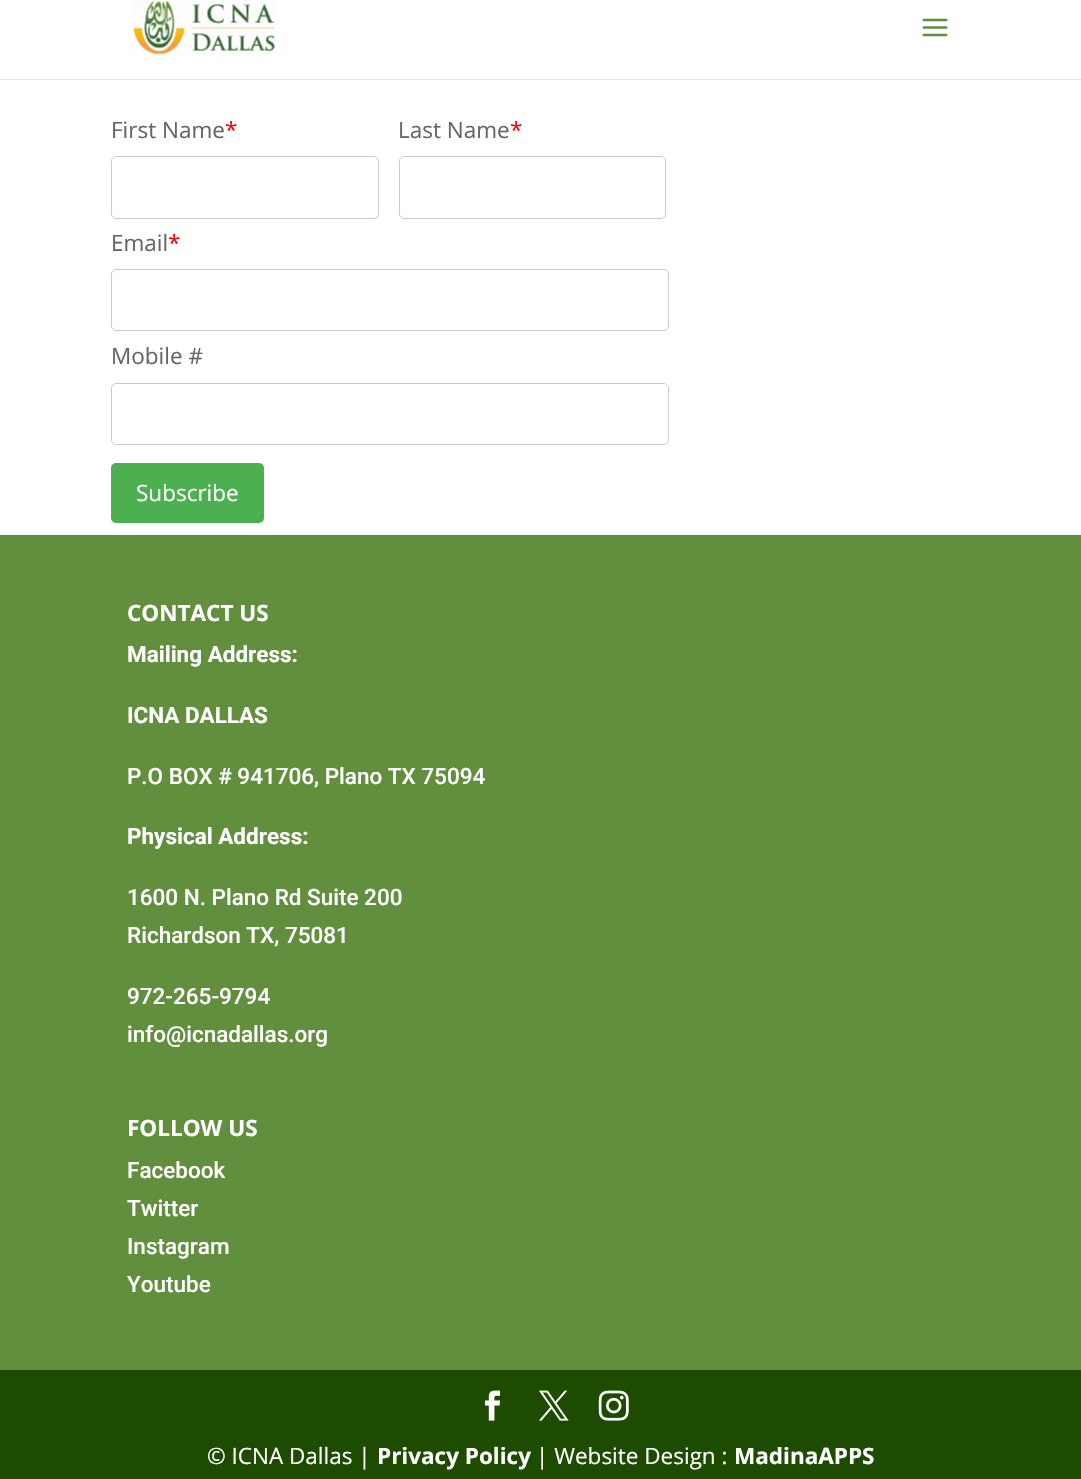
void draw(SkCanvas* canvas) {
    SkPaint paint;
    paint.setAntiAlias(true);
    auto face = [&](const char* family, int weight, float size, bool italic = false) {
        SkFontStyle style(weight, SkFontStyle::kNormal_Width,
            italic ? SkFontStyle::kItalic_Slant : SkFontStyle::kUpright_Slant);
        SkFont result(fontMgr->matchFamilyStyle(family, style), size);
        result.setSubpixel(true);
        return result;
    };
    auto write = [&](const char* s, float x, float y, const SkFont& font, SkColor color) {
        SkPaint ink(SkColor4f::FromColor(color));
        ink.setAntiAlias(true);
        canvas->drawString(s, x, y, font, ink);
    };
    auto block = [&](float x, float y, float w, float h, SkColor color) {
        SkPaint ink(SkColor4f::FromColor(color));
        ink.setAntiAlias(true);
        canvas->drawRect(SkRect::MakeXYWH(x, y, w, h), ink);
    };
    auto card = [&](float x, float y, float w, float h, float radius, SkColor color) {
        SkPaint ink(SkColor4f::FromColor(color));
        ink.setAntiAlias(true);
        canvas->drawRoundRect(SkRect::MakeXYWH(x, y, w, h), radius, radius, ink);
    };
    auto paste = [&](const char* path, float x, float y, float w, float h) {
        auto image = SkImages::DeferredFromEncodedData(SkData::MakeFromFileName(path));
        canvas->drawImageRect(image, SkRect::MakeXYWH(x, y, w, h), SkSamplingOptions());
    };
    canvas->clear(SK_ColorWHITE);
    block(0, 79, 1081, 1, SkColorSetRGB(230, 230, 230));
    paste("pic1.png", 133, 0, 142, 55);
    paste("pic2.png", 922, 18, 26, 19);
    auto kFont1 = face("Open Sans", 400, 22.5f);
    write("First Name", 111, 138, kFont1, SkColorSetRGB(102, 102, 102));
    write("*", 225, 138, kFont1, SkColorSetRGB(255, 0, 0));
    paint.setStyle(SkPaint::kStroke_Style);
    paint.setStrokeWidth(1);
    paint.setColor(SkColorSetRGB(204, 204, 204));
    canvas->drawRoundRect(SkRect::MakeXYWH(111.5f, 156.5f, 267, 62), 4.5f, 4.5f, paint);
    write("Last Name", 398, 138, kFont1, SkColorSetRGB(102, 102, 102));
    write("*", 510, 138, kFont1, SkColorSetRGB(255, 0, 0));
    canvas->drawRoundRect(SkRect::MakeXYWH(399.5f, 156.5f, 266, 62), 4.5f, 4.5f, paint);
    write("Email", 111, 251, kFont1, SkColorSetRGB(102, 102, 102));
    write("*", 168, 251, kFont1, SkColorSetRGB(255, 0, 0));
    canvas->drawRoundRect(SkRect::MakeXYWH(111.5f, 269.5f, 557, 61), 4.5f, 4.5f, paint);
    write("Mobile #", 111, 364, kFont1, SkColorSetRGB(102, 102, 102));
    canvas->drawRoundRect(SkRect::MakeXYWH(111.5f, 383.5f, 557, 61), 4.5f, 4.5f, paint);
    card(111, 463, 153, 60, 5, SkColorSetRGB(76, 175, 80));
    write("Subscribe", 136, 501, kFont1, SK_ColorWHITE);
    block(0, 535, 1081, 835, SkColorSetRGB(98, 143, 61));
    auto kFont2 = face("Open Sans", 700, 22.5f);
    write("CONTACT US", 127, 621, kFont2, SK_ColorWHITE);
    auto kFont3 = face("Roboto", 700, 22.5f);
    write("Mailing Address:", 127, 662, kFont3, SK_ColorWHITE);
    write("ICNA DALLAS", 127, 723, kFont3, SK_ColorWHITE);
    auto kFont4 = face("Roboto", 500, 22.5f);
    write("P.O BOX # 941706, Plano TX 75094", 127, 784, kFont4, SK_ColorWHITE);
    write("Physical Address:", 127, 844, kFont3, SK_ColorWHITE);
    write("1600 N. Plano Rd Suite 200", 127, 905, kFont4, SK_ColorWHITE);
    write("Richardson TX, 75081", 127, 943, kFont4, SK_ColorWHITE);
    write("972-265-9794", 127, 1004, kFont4, SK_ColorWHITE);
    write("info@icnadallas.org", 127, 1042, kFont4, SK_ColorWHITE);
    write("FOLLOW US", 127, 1136, kFont2, SK_ColorWHITE);
    write("Facebook", 127, 1178, kFont4, SK_ColorWHITE);
    write("Twitter", 127, 1216, kFont4, SK_ColorWHITE);
    write("Instagram", 127, 1254, kFont4, SK_ColorWHITE);
    write("Youtube", 127, 1292, kFont4, SK_ColorWHITE);
    block(0, 1370, 1081, 109, SkColorSetRGB(29, 76, 0));
    paste("pic3.png", 485, 1390, 16, 31);
    paste("pic4.png", 539, 1390, 30, 31);
    paste("pic5.png", 598, 1390, 31, 31);
    write("© ICNA Dallas |", 207, 1464, kFont1, SK_ColorWHITE);
    write("Privacy Policy", 377, 1464, kFont2, SK_ColorWHITE);
    write("| Website Design :", 536, 1464, kFont1, SK_ColorWHITE);
    write("MadinaAPPS", 734, 1464, kFont2, SK_ColorWHITE);
}
